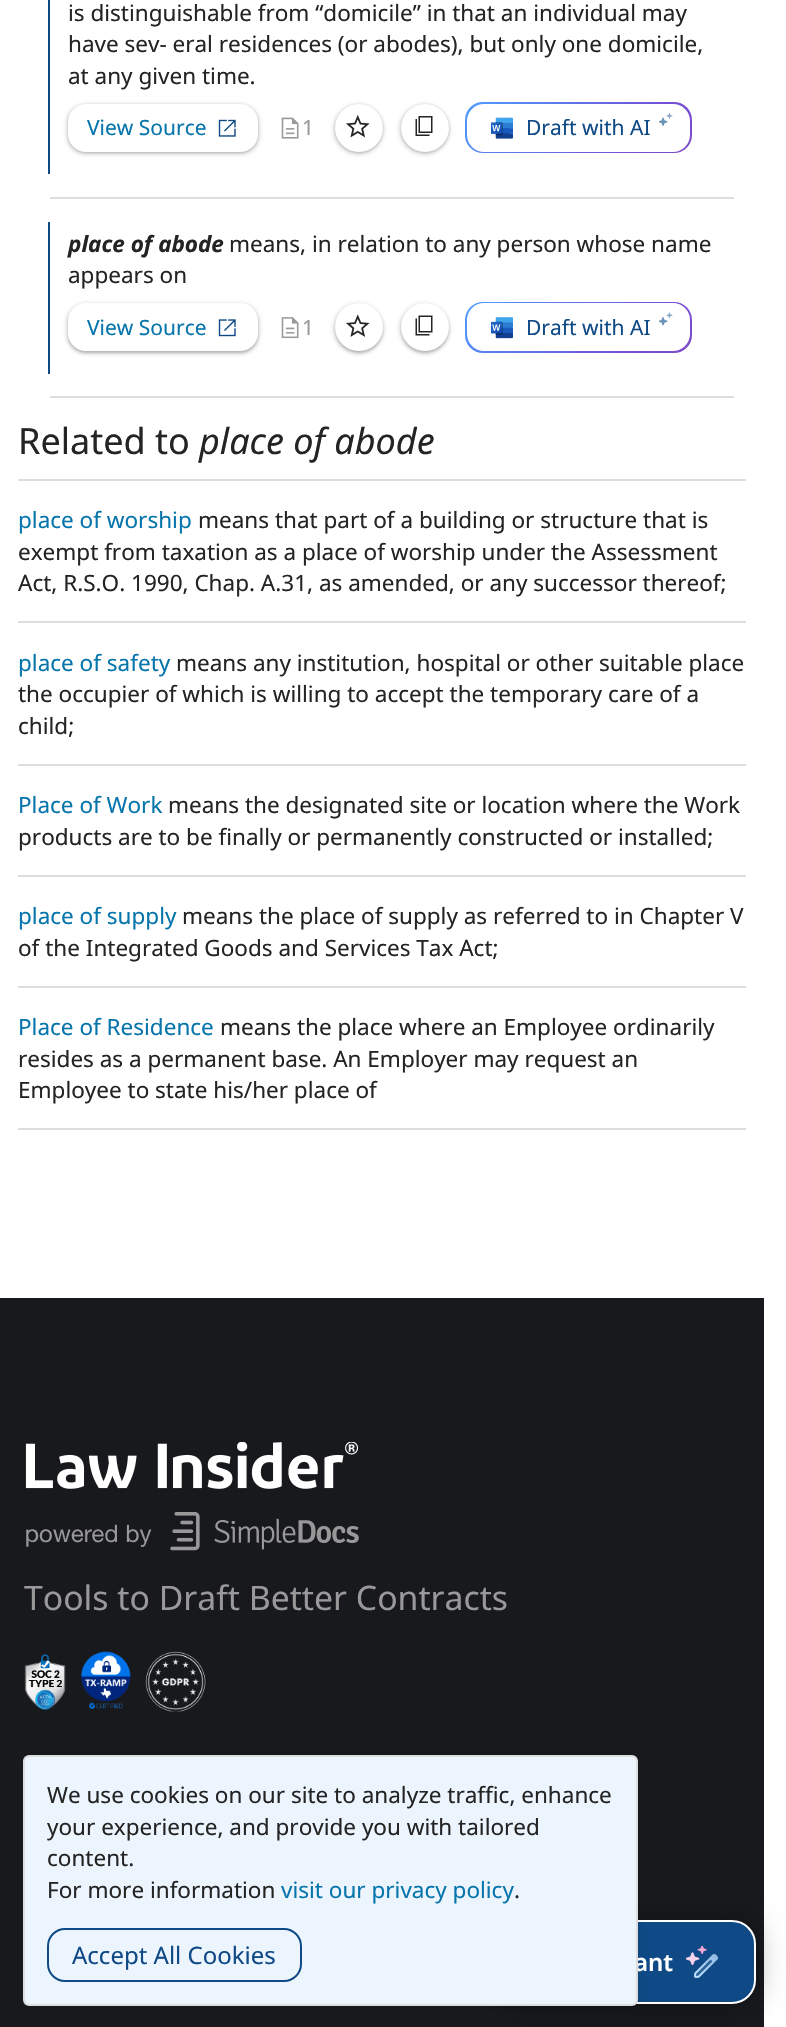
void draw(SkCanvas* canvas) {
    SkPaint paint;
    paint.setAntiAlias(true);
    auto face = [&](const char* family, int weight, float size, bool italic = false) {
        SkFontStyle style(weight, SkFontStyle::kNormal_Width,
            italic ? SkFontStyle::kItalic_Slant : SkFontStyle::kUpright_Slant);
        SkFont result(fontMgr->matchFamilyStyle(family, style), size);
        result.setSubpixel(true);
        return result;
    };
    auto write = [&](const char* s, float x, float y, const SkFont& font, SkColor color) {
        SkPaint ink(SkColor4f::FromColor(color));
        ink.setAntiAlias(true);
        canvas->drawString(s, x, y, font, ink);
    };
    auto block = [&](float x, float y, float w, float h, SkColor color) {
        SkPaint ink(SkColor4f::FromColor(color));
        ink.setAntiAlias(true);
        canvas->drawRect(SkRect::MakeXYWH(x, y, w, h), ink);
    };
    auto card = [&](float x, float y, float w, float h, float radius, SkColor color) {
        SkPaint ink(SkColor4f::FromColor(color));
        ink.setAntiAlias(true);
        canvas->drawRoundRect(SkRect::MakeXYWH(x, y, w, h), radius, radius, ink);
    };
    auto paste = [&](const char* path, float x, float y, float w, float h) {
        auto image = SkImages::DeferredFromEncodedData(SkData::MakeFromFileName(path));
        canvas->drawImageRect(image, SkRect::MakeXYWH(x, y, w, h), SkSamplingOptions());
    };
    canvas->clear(SK_ColorWHITE);
    block(48, 0, 2, 174, SkColorSetRGB(15, 74, 134));
    auto kFont1 = face("Noto Sans", 400, 22.5f);
    write("is distinguishable from “domicile” in that an individual may", 68, 21, kFont1, SkColorSetRGB(36, 36, 36));
    write("have sev- eral residences (or abodes), but only one domicile,", 68, 52, kFont1, SkColorSetRGB(36, 36, 36));
    write("at any given time.", 68, 84, kFont1, SkColorSetRGB(36, 36, 36));
    paint.setColor(SkColorSetARGB(38, 60, 64, 67));
    paint.setMaskFilter(SkMaskFilter::MakeBlur(kNormal_SkBlurStyle, 2));
    canvas->drawRoundRect(SkRect::MakeXYWH(66, 104, 194, 51), 20, 20, paint);
    paint.setMaskFilter(nullptr);
    paint.setColor(SkColorSetARGB(77, 60, 64, 67));
    paint.setMaskFilter(SkMaskFilter::MakeBlur(kNormal_SkBlurStyle, 1.5f));
    canvas->drawRoundRect(SkRect::MakeXYWH(68, 105, 190, 48), 18, 18, paint);
    paint.setMaskFilter(nullptr);
    card(68, 104, 190, 48, 18, SK_ColorWHITE);
    auto kFont2 = face("Noto Sans", 400, 21);
    write("View Source", 87, 135, kFont2, SkColorSetRGB(6, 117, 172));
    paste("pic1.png", 218, 119, 18, 18);
    paste("pic2.png", 281, 117, 18, 22);
    write("1", 302, 135, kFont2, SkColorSetRGB(153, 153, 153));
    paint.setColor(SkColorSetARGB(38, 60, 64, 67));
    paint.setMaskFilter(SkMaskFilter::MakeBlur(kNormal_SkBlurStyle, 2));
    canvas->drawRoundRect(SkRect::MakeXYWH(333, 104, 51, 51), 25.5f, 25.5f, paint);
    paint.setMaskFilter(nullptr);
    paint.setColor(SkColorSetARGB(77, 60, 64, 67));
    paint.setMaskFilter(SkMaskFilter::MakeBlur(kNormal_SkBlurStyle, 1.5f));
    canvas->drawRoundRect(SkRect::MakeXYWH(335, 105, 48, 48), 24, 24, paint);
    paint.setMaskFilter(nullptr);
    paint.setColor(SK_ColorWHITE);
    canvas->drawCircle(359, 128, 24, paint);
    paste("pic3.png", 346, 115, 24, 23);
    paint.setColor(SkColorSetARGB(38, 60, 64, 67));
    paint.setMaskFilter(SkMaskFilter::MakeBlur(kNormal_SkBlurStyle, 2));
    canvas->drawRoundRect(SkRect::MakeXYWH(399, 104, 51, 51), 25.5f, 25.5f, paint);
    paint.setMaskFilter(nullptr);
    paint.setColor(SkColorSetARGB(77, 60, 64, 67));
    paint.setMaskFilter(SkMaskFilter::MakeBlur(kNormal_SkBlurStyle, 1.5f));
    canvas->drawRoundRect(SkRect::MakeXYWH(401, 105, 48, 48), 24, 24, paint);
    paint.setMaskFilter(nullptr);
    paint.setColor(SK_ColorWHITE);
    canvas->drawCircle(425, 128, 24, paint);
    paste("pic4.png", 415, 116, 18, 20);
    {
        const SkColor colors[] = {SkColorSetRGB(77, 157, 255), SkColorSetRGB(114, 81, 215), SkColorSetRGB(158, 60, 168), SkColorSetRGB(176, 25, 131), SkColorSetRGB(158, 60, 168), SkColorSetRGB(114, 81, 215), SkColorSetRGB(77, 157, 255), SkColorSetRGB(114, 81, 215), SkColorSetRGB(176, 25, 131), SkColorSetRGB(158, 60, 168), SkColorSetRGB(114, 81, 215)};
        const float stops[] = {0, 0.09f, 0.2f, 0.29f, 0.36f, 0.44f, 0.55f, 0.65f, 0.76f, 0.84f, 0.96f};
        const SkPoint ends[] = {{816, -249}, {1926, 861}};
        paint.setShader(SkGradientShader::MakeLinear(ends, colors, stops, 11, SkTileMode::kClamp));
        paint.setAlpha(255);
    }
    canvas->drawRoundRect(SkRect::MakeXYWH(465, 102, 227, 51), 18, 18, paint);
    card(467, 104, 223, 48, 17, SK_ColorWHITE);
    paste("pic5.png", 491, 117, 22, 22);
    write("Draft with AI", 526, 135, kFont2, SkColorSetRGB(15, 74, 134));
    paste("pic6.png", 659, 113, 14, 13);
    block(50, 197, 684, 2, SkColorSetRGB(221, 221, 221));
    block(48, 222, 2, 152, SkColorSetRGB(15, 74, 134));
    auto kFont3 = face("Noto Sans", 700, 22.5f, true);
    write("place of abode", 68, 252, kFont3, SkColorSetRGB(36, 36, 36));
    write("means, in relation to any person whose name", 229, 252, kFont1, SkColorSetRGB(36, 36, 36));
    write("appears on", 68, 283, kFont1, SkColorSetRGB(36, 36, 36));
    paint.setShader(nullptr);
    paint.setColor(SkColorSetARGB(38, 60, 64, 67));
    paint.setMaskFilter(SkMaskFilter::MakeBlur(kNormal_SkBlurStyle, 2));
    canvas->drawRoundRect(SkRect::MakeXYWH(66, 303, 194, 51), 20, 20, paint);
    paint.setMaskFilter(nullptr);
    paint.setColor(SkColorSetARGB(77, 60, 64, 67));
    paint.setMaskFilter(SkMaskFilter::MakeBlur(kNormal_SkBlurStyle, 1.5f));
    canvas->drawRoundRect(SkRect::MakeXYWH(68, 305, 190, 48), 18, 18, paint);
    paint.setMaskFilter(nullptr);
    card(68, 303, 190, 48, 18, SK_ColorWHITE);
    write("View Source", 87, 335, kFont2, SkColorSetRGB(6, 117, 172));
    paste("pic7.png", 218, 319, 18, 18);
    paste("pic8.png", 281, 317, 18, 22);
    write("1", 302, 335, kFont2, SkColorSetRGB(153, 153, 153));
    paint.setColor(SkColorSetARGB(38, 60, 64, 67));
    paint.setMaskFilter(SkMaskFilter::MakeBlur(kNormal_SkBlurStyle, 2));
    canvas->drawRoundRect(SkRect::MakeXYWH(333, 303, 51, 51), 25.5f, 25.5f, paint);
    paint.setMaskFilter(nullptr);
    paint.setColor(SkColorSetARGB(77, 60, 64, 67));
    paint.setMaskFilter(SkMaskFilter::MakeBlur(kNormal_SkBlurStyle, 1.5f));
    canvas->drawRoundRect(SkRect::MakeXYWH(335, 305, 48, 48), 24, 24, paint);
    paint.setMaskFilter(nullptr);
    paint.setColor(SK_ColorWHITE);
    canvas->drawCircle(359, 327, 24, paint);
    paste("pic9.png", 346, 314, 24, 23);
    paint.setColor(SkColorSetARGB(38, 60, 64, 67));
    paint.setMaskFilter(SkMaskFilter::MakeBlur(kNormal_SkBlurStyle, 2));
    canvas->drawRoundRect(SkRect::MakeXYWH(399, 303, 51, 51), 25.5f, 25.5f, paint);
    paint.setMaskFilter(nullptr);
    paint.setColor(SkColorSetARGB(77, 60, 64, 67));
    paint.setMaskFilter(SkMaskFilter::MakeBlur(kNormal_SkBlurStyle, 1.5f));
    canvas->drawRoundRect(SkRect::MakeXYWH(401, 305, 48, 48), 24, 24, paint);
    paint.setMaskFilter(nullptr);
    paint.setColor(SK_ColorWHITE);
    canvas->drawCircle(425, 327, 24, paint);
    paste("pic10.png", 415, 315, 18, 21);
    {
        const SkColor colors[] = {SkColorSetRGB(77, 157, 255), SkColorSetRGB(114, 81, 215), SkColorSetRGB(158, 60, 168), SkColorSetRGB(176, 25, 131), SkColorSetRGB(158, 60, 168), SkColorSetRGB(114, 81, 215), SkColorSetRGB(77, 157, 255), SkColorSetRGB(114, 81, 215), SkColorSetRGB(176, 25, 131), SkColorSetRGB(158, 60, 168), SkColorSetRGB(114, 81, 215)};
        const float stops[] = {0, 0.09f, 0.2f, 0.29f, 0.36f, 0.44f, 0.55f, 0.65f, 0.76f, 0.84f, 0.96f};
        const SkPoint ends[] = {{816, -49}, {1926, 1061}};
        paint.setShader(SkGradientShader::MakeLinear(ends, colors, stops, 11, SkTileMode::kClamp));
        paint.setAlpha(255);
    }
    canvas->drawRoundRect(SkRect::MakeXYWH(465, 302, 227, 51), 18, 18, paint);
    card(467, 303, 223, 48, 17, SK_ColorWHITE);
    paste("pic11.png", 491, 317, 22, 22);
    write("Draft with AI", 526, 335, kFont2, SkColorSetRGB(15, 74, 134));
    paste("pic12.png", 659, 312, 14, 14);
    block(50, 396, 684, 2, SkColorSetRGB(221, 221, 221));
    auto kFont4 = face("Noto Sans", 400, 36);
    write("Related to", 18, 454, kFont4, SkColorSetRGB(36, 36, 36));
    auto kFont5 = face("Noto Sans", 400, 36, true);
    write("place of abode", 199, 454, kFont5, SkColorSetRGB(36, 36, 36));
    block(18, 479, 728, 2, SkColorSetRGB(221, 221, 221));
    block(18, 621, 728, 2, SkColorSetRGB(221, 221, 221));
    write("place of worship", 18, 528, kFont1, SkColorSetRGB(6, 117, 172));
    write("means that part of a building or structure that is", 198, 528, kFont1, SkColorSetRGB(36, 36, 36));
    write("exempt from taxation as a place of worship under the Assessment", 18, 560, kFont1, SkColorSetRGB(36, 36, 36));
    write("Act, R.S.O. 1990, Chap. A.31, as amended, or any successor thereof;", 18, 591, kFont1, SkColorSetRGB(36, 36, 36));
    block(18, 764, 728, 2, SkColorSetRGB(221, 221, 221));
    write("place of safety", 18, 671, kFont1, SkColorSetRGB(6, 117, 172));
    write("means any institution, hospital or other suitable place", 176, 671, kFont1, SkColorSetRGB(36, 36, 36));
    write("the occupier of which is willing to accept the temporary care of a", 18, 702, kFont1, SkColorSetRGB(36, 36, 36));
    write("child;", 18, 734, kFont1, SkColorSetRGB(36, 36, 36));
    block(18, 875, 728, 2, SkColorSetRGB(221, 221, 221));
    write("Place of Work", 18, 813, kFont1, SkColorSetRGB(6, 117, 172));
    write("means the designated site or location where the Work", 168, 813, kFont1, SkColorSetRGB(36, 36, 36));
    write("products are to be finally or permanently constructed or installed;", 18, 845, kFont1, SkColorSetRGB(36, 36, 36));
    block(18, 986, 728, 2, SkColorSetRGB(221, 221, 221));
    write("place of supply", 18, 924, kFont1, SkColorSetRGB(6, 117, 172));
    write("means the place of supply as referred to in Chapter V", 182, 924, kFont1, SkColorSetRGB(36, 36, 36));
    write("of the Integrated Goods and Services Tax Act;", 18, 956, kFont1, SkColorSetRGB(36, 36, 36));
    block(18, 1128, 728, 2, SkColorSetRGB(221, 221, 221));
    write("Place of Residence", 18, 1035, kFont1, SkColorSetRGB(6, 117, 172));
    write("means the place where an Employee ordinarily", 220, 1035, kFont1, SkColorSetRGB(36, 36, 36));
    write("resides as a permanent base. An Employer may request an", 18, 1067, kFont1, SkColorSetRGB(36, 36, 36));
    write("Employee to state his/her place of", 18, 1098, kFont1, SkColorSetRGB(36, 36, 36));
    block(0, 1298, 764, 729, SkColorSetRGB(23, 25, 29));
    paint.setShader(nullptr);
    paint.setColor(SkColorSetARGB(84, 0, 0, 0));
    paint.setMaskFilter(SkMaskFilter::MakeBlur(kNormal_SkBlurStyle, 15));
    canvas->drawRoundRect(SkRect::MakeXYWH(497, 1920, 259, 84), 24, 24, paint);
    paint.setMaskFilter(nullptr);
    paint.setColor(SkColorSetRGB(15, 74, 134));
    canvas->drawRoundRect(SkRect::MakeXYWH(498, 1921, 257, 82), 23, 23, paint);
    paint.setStyle(SkPaint::kStroke_Style);
    paint.setStrokeWidth(2);
    paint.setColor(SK_ColorWHITE);
    canvas->drawRoundRect(SkRect::MakeXYWH(498, 1921, 257, 82), 23, 23, paint);
    paint.setStyle(SkPaint::kFill_Style);
    paint.setColor(SkColorSetARGB(26, 0, 0, 0));
    paint.setMaskFilter(SkMaskFilter::MakeBlur(kNormal_SkBlurStyle, 3));
    canvas->drawRoundRect(SkRect::MakeXYWH(23, 1755, 615, 251), 6, 6, paint);
    paint.setMaskFilter(nullptr);
    auto kFont6 = face("Noto Sans", 600, 24);
    write("ant", 634, 1971, kFont6, SK_ColorWHITE);
    paint.setColor(SkColorSetRGB(236, 244, 253));
    canvas->drawRoundRect(SkRect::MakeXYWH(24, 1756, 613, 249), 5, 5, paint);
    paint.setStyle(SkPaint::kStroke_Style);
    paint.setColor(SkColorSetRGB(221, 221, 221));
    canvas->drawRoundRect(SkRect::MakeXYWH(24, 1756, 613, 249), 5, 5, paint);
    write("We use cookies on our site to analyze traffic, enhance", 47, 1803, kFont1, SkColorSetRGB(36, 36, 36));
    write("your experience, and provide you with tailored", 47, 1835, kFont1, SkColorSetRGB(36, 36, 36));
    write("content.", 47, 1866, kFont1, SkColorSetRGB(36, 36, 36));
    write("For more information", 47, 1898, kFont1, SkColorSetRGB(36, 36, 36));
    write("visit our privacy policy", 281, 1898, kFont1, SkColorSetRGB(6, 117, 172));
    write(".", 514, 1898, kFont1, SkColorSetRGB(36, 36, 36));
    paint.setColor(SkColorSetRGB(15, 74, 134));
    canvas->drawRoundRect(SkRect::MakeXYWH(48, 1929, 253, 52), 17, 17, paint);
    auto kFont7 = face("Noto Sans", 400, 24);
    write("Accept All Cookies", 72, 1964, kFont7, SkColorSetRGB(15, 74, 134));
    paste("pic13.png", 25, 1442, 333, 47);
    paste("pic14.png", 26, 1512, 333, 39);
    auto kFont8 = face("Noto Sans", 400, 33.75f);
    write("Tools to Draft Better Contracts", 24, 1610, kFont8, SkColorSetRGB(153, 153, 153));
    paste("pic15.png", 24, 1654, 42, 56);
    paste("pic16.png", 81, 1651, 50, 58);
    paste("pic17.png", 145, 1651, 61, 61);
    paste("pic18.png", 686, 1946, 32, 32);
}
